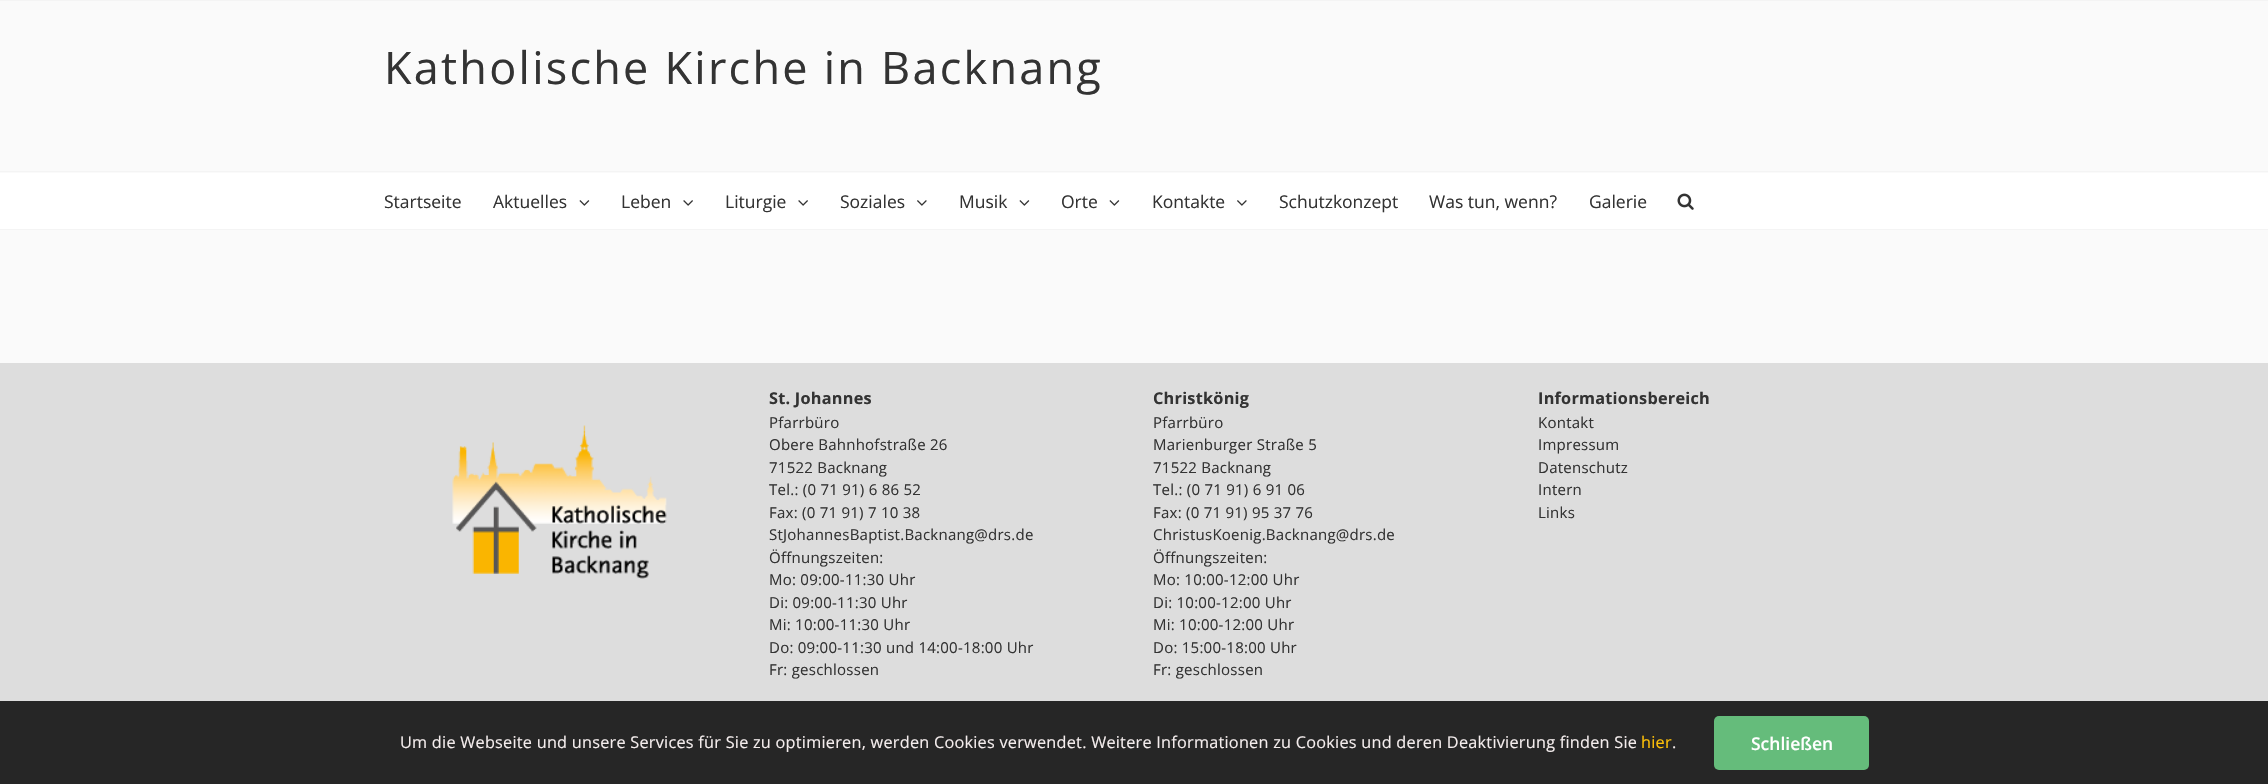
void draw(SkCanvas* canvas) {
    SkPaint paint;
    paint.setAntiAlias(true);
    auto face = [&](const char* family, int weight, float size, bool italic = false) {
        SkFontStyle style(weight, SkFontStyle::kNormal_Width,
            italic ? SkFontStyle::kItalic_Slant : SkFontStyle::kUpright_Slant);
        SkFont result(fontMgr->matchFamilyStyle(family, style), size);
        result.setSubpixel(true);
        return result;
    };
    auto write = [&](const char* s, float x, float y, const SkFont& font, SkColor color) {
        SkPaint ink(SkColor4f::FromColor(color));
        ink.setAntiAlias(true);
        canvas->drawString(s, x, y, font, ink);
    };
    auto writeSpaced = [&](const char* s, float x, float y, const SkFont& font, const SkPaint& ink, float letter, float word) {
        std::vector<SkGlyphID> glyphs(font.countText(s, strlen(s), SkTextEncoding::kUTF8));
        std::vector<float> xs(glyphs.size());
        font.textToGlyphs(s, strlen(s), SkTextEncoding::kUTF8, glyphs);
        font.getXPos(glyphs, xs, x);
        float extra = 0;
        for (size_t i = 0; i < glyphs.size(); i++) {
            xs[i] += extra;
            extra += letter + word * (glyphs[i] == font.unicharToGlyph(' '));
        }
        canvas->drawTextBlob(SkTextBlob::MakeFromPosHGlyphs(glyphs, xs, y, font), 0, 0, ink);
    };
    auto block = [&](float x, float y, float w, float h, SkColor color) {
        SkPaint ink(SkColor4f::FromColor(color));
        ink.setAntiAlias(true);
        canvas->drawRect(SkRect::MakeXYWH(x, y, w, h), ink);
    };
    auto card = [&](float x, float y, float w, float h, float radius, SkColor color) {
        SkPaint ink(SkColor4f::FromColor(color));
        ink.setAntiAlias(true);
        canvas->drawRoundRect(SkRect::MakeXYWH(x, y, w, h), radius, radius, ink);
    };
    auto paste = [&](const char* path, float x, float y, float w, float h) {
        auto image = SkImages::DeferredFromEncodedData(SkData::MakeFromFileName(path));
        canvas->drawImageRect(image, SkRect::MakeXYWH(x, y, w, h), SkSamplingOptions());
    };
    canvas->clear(SkColorSetRGB(250, 250, 250));
    block(0, 0, 2268, 1, SkColorSetRGB(244, 244, 244));
    block(0, 171, 2268, 1, SkColorSetRGB(244, 244, 244));
    auto kFont1 = face("Open Sans", 400, 45);
    paint.setColor(SkColorSetRGB(51, 51, 51));
    writeSpaced("Katholische Kirche in Backnang", 384, 84, kFont1, paint, 2.25f, 0);
    block(0, 173, 2268, 56, SK_ColorWHITE);
    block(0, 229, 2268, 1, SkColorSetRGB(244, 244, 244));
    auto kFont2 = face("Open Sans", 400, 17.5f);
    write("Startseite", 384, 208, kFont2, SkColorSetRGB(51, 51, 51));
    write("Aktuelles", 493, 208, kFont2, SkColorSetRGB(51, 51, 51));
    paste("pic1.png", 579, 200, 11, 6);
    write("Leben", 621, 208, kFont2, SkColorSetRGB(51, 51, 51));
    paste("pic2.png", 683, 200, 10, 6);
    write("Liturgie", 725, 208, kFont2, SkColorSetRGB(51, 51, 51));
    paste("pic2.png", 798, 200, 10, 6);
    write("Soziales", 840, 208, kFont2, SkColorSetRGB(51, 51, 51));
    paste("pic3.png", 917, 200, 10, 6);
    write("Musik", 959, 208, kFont2, SkColorSetRGB(51, 51, 51));
    paste("pic1.png", 1019, 200, 11, 6);
    write("Orte", 1061, 208, kFont2, SkColorSetRGB(51, 51, 51));
    paste("pic1.png", 1109, 200, 11, 6);
    write("Kontakte", 1152, 208, kFont2, SkColorSetRGB(51, 51, 51));
    paste("pic3.png", 1237, 200, 10, 6);
    write("Schutzkonzept", 1279, 208, kFont2, SkColorSetRGB(51, 51, 51));
    write("Was tun, wenn?", 1429, 208, kFont2, SkColorSetRGB(51, 51, 51));
    write("Galerie", 1589, 208, kFont2, SkColorSetRGB(51, 51, 51));
    paste("pic4.png", 1677, 193, 17, 17);
    block(0, 363, 2268, 338, SkColorSetRGB(221, 221, 221));
    paste("pic5.png", 452, 425, 215, 154);
    auto kFont3 = face("Open Sans", 700, 16.25f);
    writeSpaced("St. Johannes", 769, 404, kFont3, paint, 0.25f, 0);
    auto kFont4 = face("Open Sans", 400, 15);
    writeSpaced("Pfarrbüro", 769, 428, kFont4, paint, 0.25f, 0);
    writeSpaced("Obere Bahnhofstraße 26", 769, 450, kFont4, paint, 0.25f, 0);
    writeSpaced("71522 Backnang", 769, 473, kFont4, paint, 0.25f, 0);
    writeSpaced("Tel.: (0 71 91) 6 86 52", 769, 495, kFont4, paint, 0.25f, 0);
    writeSpaced("Fax: (0 71 91) 7 10 38", 769, 518, kFont4, paint, 0.25f, 0);
    writeSpaced("StJohannesBaptist.Backnang@drs.de", 769, 540, kFont4, paint, 0.25f, 0);
    writeSpaced("Öffnungszeiten:", 769, 563, kFont4, paint, 0.25f, 0);
    writeSpaced("Mo: 09:00-11:30 Uhr", 769, 585, kFont4, paint, 0.25f, 0);
    writeSpaced("Di: 09:00-11:30 Uhr", 769, 608, kFont4, paint, 0.25f, 0);
    writeSpaced("Mi: 10:00-11:30 Uhr", 769, 630, kFont4, paint, 0.25f, 0);
    writeSpaced("Do: 09:00-11:30 und 14:00-18:00 Uhr", 769, 653, kFont4, paint, 0.25f, 0);
    writeSpaced("Fr: geschlossen", 769, 675, kFont4, paint, 0.25f, 0);
    writeSpaced("Christkönig", 1153, 404, kFont3, paint, 0.25f, 0);
    writeSpaced("Pfarrbüro", 1153, 428, kFont4, paint, 0.25f, 0);
    writeSpaced("Marienburger Straße 5", 1153, 450, kFont4, paint, 0.25f, 0);
    writeSpaced("71522 Backnang", 1153, 473, kFont4, paint, 0.25f, 0);
    writeSpaced("Tel.: (0 71 91) 6 91 06", 1153, 495, kFont4, paint, 0.25f, 0);
    writeSpaced("Fax: (0 71 91) 95 37 76", 1153, 518, kFont4, paint, 0.25f, 0);
    writeSpaced("ChristusKoenig.Backnang@drs.de", 1153, 540, kFont4, paint, 0.25f, 0);
    writeSpaced("Öffnungszeiten:", 1153, 563, kFont4, paint, 0.25f, 0);
    writeSpaced("Mo: 10:00-12:00 Uhr", 1153, 585, kFont4, paint, 0.25f, 0);
    writeSpaced("Di: 10:00-12:00 Uhr", 1153, 608, kFont4, paint, 0.25f, 0);
    writeSpaced("Mi: 10:00-12:00 Uhr", 1153, 630, kFont4, paint, 0.25f, 0);
    writeSpaced("Do: 15:00-18:00 Uhr", 1153, 653, kFont4, paint, 0.25f, 0);
    writeSpaced("Fr: geschlossen", 1153, 675, kFont4, paint, 0.25f, 0);
    writeSpaced("Informationsbereich", 1538, 404, kFont3, paint, 0.25f, 0);
    writeSpaced("Kontakt", 1538, 428, kFont4, paint, 0.25f, 0);
    writeSpaced("Impressum", 1538, 450, kFont4, paint, 0.25f, 0);
    writeSpaced("Datenschutz", 1538, 473, kFont4, paint, 0.25f, 0);
    writeSpaced("Intern", 1538, 495, kFont4, paint, 0.25f, 0);
    writeSpaced("Links", 1538, 518, kFont4, paint, 0.25f, 0);
    block(0, 701, 2268, 83, SkColorSetRGB(38, 38, 38));
    auto kFont5 = face("Open Sans", 400, 16.25f);
    paint.setColor(SkColorSetRGB(244, 237, 237));
    writeSpaced("Um die Webseite und unsere Services für Sie zu optimieren, werden Cookies verwendet. Weitere Informationen zu Cookies und deren Deaktivierung finden Sie", 400, 748, kFont5, paint, 0.25f, 0);
    paint.setColor(SkColorSetRGB(255, 193, 7));
    writeSpaced("hier", 1641, 748, kFont5, paint, 0.25f, 0);
    paint.setColor(SkColorSetRGB(244, 237, 237));
    writeSpaced(".", 1672, 748, kFont5, paint, 0.25f, 0);
    card(1714, 716, 155, 54, 5, SkColorSetRGB(101, 188, 123));
    auto kFont6 = face("Open Sans", 600, 17.5f);
    write("Schließen", 1751, 750, kFont6, SK_ColorWHITE);
}
